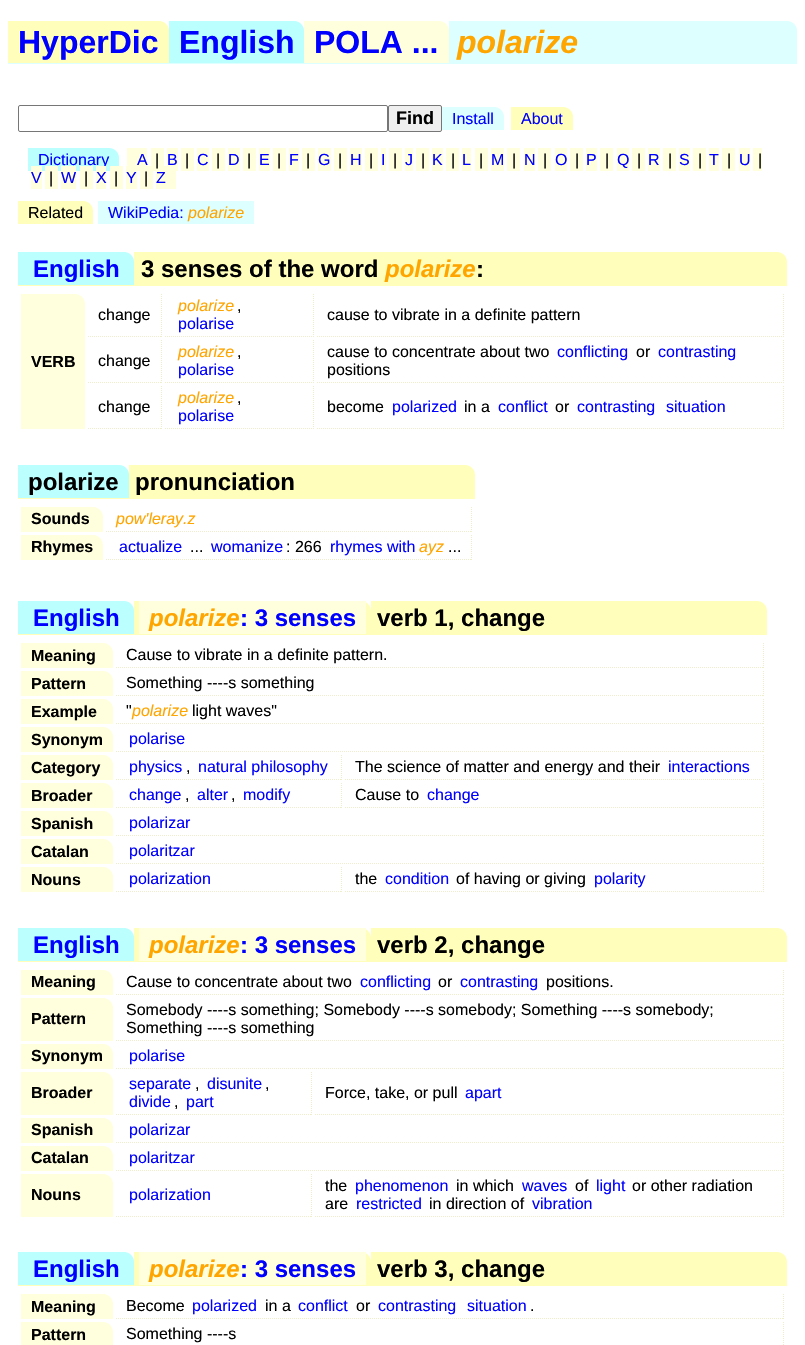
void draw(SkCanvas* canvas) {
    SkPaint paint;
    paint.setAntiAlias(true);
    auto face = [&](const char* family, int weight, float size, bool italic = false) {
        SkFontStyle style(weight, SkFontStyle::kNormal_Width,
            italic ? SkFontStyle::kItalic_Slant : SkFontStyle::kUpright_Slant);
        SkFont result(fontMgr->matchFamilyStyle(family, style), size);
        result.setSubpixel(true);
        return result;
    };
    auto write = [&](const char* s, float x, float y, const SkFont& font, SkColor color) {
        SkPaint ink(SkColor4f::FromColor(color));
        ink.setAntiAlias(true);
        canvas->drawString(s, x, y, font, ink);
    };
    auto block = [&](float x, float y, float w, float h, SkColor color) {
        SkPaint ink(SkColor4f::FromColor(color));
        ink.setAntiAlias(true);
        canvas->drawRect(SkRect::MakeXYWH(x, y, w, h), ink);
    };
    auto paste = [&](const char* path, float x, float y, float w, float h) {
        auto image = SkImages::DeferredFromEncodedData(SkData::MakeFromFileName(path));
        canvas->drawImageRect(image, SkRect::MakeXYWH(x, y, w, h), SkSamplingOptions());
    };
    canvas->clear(SK_ColorWHITE);
    block(8, 21, 789, 43, SkColorSetRGB(221, 255, 255));
    paste("pic1.png", 788, 21, 9, 9);
    block(8, 21, 161, 42, SkColorSetRGB(255, 255, 187));
    paste("pic2.png", 160, 21, 9, 9);
    block(169, 21, 135, 42, SkColorSetRGB(187, 255, 255));
    paste("pic3.png", 295, 21, 9, 9);
    block(304, 21, 145, 42, SkColorSetRGB(255, 255, 221));
    paste("pic4.png", 440, 21, 9, 9);
    auto kFont1 = face("Liberation Sans", 700, 32);
    write("HyperDic", 18, 53, kFont1, SkColorSetRGB(0, 0, 255));
    write("English", 179, 53, kFont1, SkColorSetRGB(0, 0, 255));
    write("POLA ...", 314, 53, kFont1, SkColorSetRGB(0, 0, 255));
    auto kFont2 = face("Liberation Sans", 700, 32, true);
    write("polarize", 457, 53, kFont2, SkColorSetRGB(255, 165, 0));
    paint.setStyle(SkPaint::kStroke_Style);
    paint.setStrokeWidth(1);
    paint.setColor(SkColorSetRGB(118, 118, 118));
    canvas->drawRoundRect(SkRect::MakeXYWH(18.5f, 105.5f, 369, 26), 1.5f, 1.5f, paint);
    paint.setStyle(SkPaint::kFill_Style);
    paint.setColor(SkColorSetRGB(239, 239, 239));
    canvas->drawRoundRect(SkRect::MakeXYWH(388.5f, 105.5f, 53, 26), 1.5f, 1.5f, paint);
    paint.setStyle(SkPaint::kStroke_Style);
    paint.setColor(SkColorSetRGB(118, 118, 118));
    canvas->drawRoundRect(SkRect::MakeXYWH(388.5f, 105.5f, 53, 26), 1.5f, 1.5f, paint);
    auto kFont3 = face("Liberation Sans", 700, 18);
    write("Find", 396, 124, kFont3, SK_ColorBLACK);
    block(442, 107, 62, 23, SkColorSetRGB(221, 255, 255));
    auto kFont4 = face("Liberation Sans", 400, 16);
    write("Install", 452, 124, kFont4, SkColorSetRGB(0, 0, 255));
    paste("pic1.png", 495, 107, 9, 9);
    block(511, 107, 62, 23, SkColorSetRGB(255, 255, 187));
    write("About", 521, 124, kFont4, SkColorSetRGB(0, 0, 255));
    paste("pic2.png", 564, 107, 9, 9);
    block(28, 148, 91, 23, SkColorSetRGB(187, 255, 255));
    write("Dictionary", 38, 165, kFont4, SkColorSetRGB(0, 0, 255));
    paste("pic3.png", 110, 148, 9, 9);
    block(127, 148, 20, 23, SkColorSetRGB(255, 255, 221));
    write("A", 137, 165, kFont4, SkColorSetRGB(0, 0, 255));
    block(151, 148, 13, 23, SkColorSetRGB(255, 255, 221));
    block(167, 148, 11, 23, SkColorSetRGB(255, 255, 221));
    block(156, 166, 20, 23, SkColorSetRGB(255, 255, 221));
    write("|", 155, 165, kFont4, SK_ColorBLACK);
    write("B", 167, 165, kFont4, SkColorSetRGB(0, 0, 255));
    block(181, 148, 13, 23, SkColorSetRGB(255, 255, 221));
    write("|", 185, 165, kFont4, SK_ColorBLACK);
    block(197, 148, 12, 23, SkColorSetRGB(255, 255, 221));
    write("C", 197, 165, kFont4, SkColorSetRGB(0, 0, 255));
    block(212, 148, 13, 23, SkColorSetRGB(255, 255, 221));
    write("|", 216, 165, kFont4, SK_ColorBLACK);
    block(228, 148, 12, 23, SkColorSetRGB(255, 255, 221));
    write("D", 228, 165, kFont4, SkColorSetRGB(0, 0, 255));
    block(243, 148, 13, 23, SkColorSetRGB(255, 255, 221));
    write("|", 247, 165, kFont4, SK_ColorBLACK);
    block(259, 148, 11, 23, SkColorSetRGB(255, 255, 221));
    write("E", 259, 165, kFont4, SkColorSetRGB(0, 0, 255));
    block(273, 148, 13, 23, SkColorSetRGB(255, 255, 221));
    write("|", 277, 165, kFont4, SK_ColorBLACK);
    block(289, 148, 10, 23, SkColorSetRGB(255, 255, 221));
    write("F", 289, 165, kFont4, SkColorSetRGB(0, 0, 255));
    block(302, 148, 13, 23, SkColorSetRGB(255, 255, 221));
    write("|", 306, 165, kFont4, SK_ColorBLACK);
    block(318, 148, 13, 23, SkColorSetRGB(255, 255, 221));
    write("G", 318, 165, kFont4, SkColorSetRGB(0, 0, 255));
    block(334, 148, 13, 23, SkColorSetRGB(255, 255, 221));
    write("|", 338, 165, kFont4, SK_ColorBLACK);
    block(350, 148, 12, 23, SkColorSetRGB(255, 255, 221));
    write("H", 350, 165, kFont4, SkColorSetRGB(0, 0, 255));
    block(365, 148, 13, 23, SkColorSetRGB(255, 255, 221));
    write("|", 369, 165, kFont4, SK_ColorBLACK);
    block(381, 148, 5, 23, SkColorSetRGB(255, 255, 221));
    write("I", 381, 165, kFont4, SkColorSetRGB(0, 0, 255));
    block(389, 148, 13, 23, SkColorSetRGB(255, 255, 221));
    write("|", 393, 165, kFont4, SK_ColorBLACK);
    block(405, 148, 8, 23, SkColorSetRGB(255, 255, 221));
    write("J", 405, 165, kFont4, SkColorSetRGB(0, 0, 255));
    block(416, 148, 13, 23, SkColorSetRGB(255, 255, 221));
    write("|", 421, 165, kFont4, SK_ColorBLACK);
    block(432, 148, 11, 23, SkColorSetRGB(255, 255, 221));
    write("K", 432, 165, kFont4, SkColorSetRGB(0, 0, 255));
    block(446, 148, 13, 23, SkColorSetRGB(255, 255, 221));
    write("|", 451, 165, kFont4, SK_ColorBLACK);
    block(462, 148, 9, 23, SkColorSetRGB(255, 255, 221));
    write("L", 462, 165, kFont4, SkColorSetRGB(0, 0, 255));
    block(475, 148, 13, 23, SkColorSetRGB(255, 255, 221));
    write("|", 479, 165, kFont4, SK_ColorBLACK);
    block(491, 148, 13, 23, SkColorSetRGB(255, 255, 221));
    write("M", 491, 165, kFont4, SkColorSetRGB(0, 0, 255));
    block(507, 148, 13, 23, SkColorSetRGB(255, 255, 221));
    write("|", 512, 165, kFont4, SK_ColorBLACK);
    block(524, 148, 11, 23, SkColorSetRGB(255, 255, 221));
    write("N", 524, 165, kFont4, SkColorSetRGB(0, 0, 255));
    block(538, 148, 13, 23, SkColorSetRGB(255, 255, 221));
    write("|", 543, 165, kFont4, SK_ColorBLACK);
    block(555, 148, 12, 23, SkColorSetRGB(255, 255, 221));
    write("O", 555, 165, kFont4, SkColorSetRGB(0, 0, 255));
    block(570, 148, 13, 23, SkColorSetRGB(255, 255, 221));
    write("|", 575, 165, kFont4, SK_ColorBLACK);
    block(586, 148, 11, 23, SkColorSetRGB(255, 255, 221));
    write("P", 586, 165, kFont4, SkColorSetRGB(0, 0, 255));
    block(600, 148, 13, 23, SkColorSetRGB(255, 255, 221));
    write("|", 605, 165, kFont4, SK_ColorBLACK);
    block(617, 148, 12, 23, SkColorSetRGB(255, 255, 221));
    write("Q", 617, 165, kFont4, SkColorSetRGB(0, 0, 255));
    block(632, 148, 13, 23, SkColorSetRGB(255, 255, 221));
    write("|", 637, 165, kFont4, SK_ColorBLACK);
    block(648, 148, 12, 23, SkColorSetRGB(255, 255, 221));
    write("R", 648, 165, kFont4, SkColorSetRGB(0, 0, 255));
    block(663, 148, 13, 23, SkColorSetRGB(255, 255, 221));
    write("|", 668, 165, kFont4, SK_ColorBLACK);
    block(679, 148, 11, 23, SkColorSetRGB(255, 255, 221));
    write("S", 679, 165, kFont4, SkColorSetRGB(0, 0, 255));
    block(693, 148, 13, 23, SkColorSetRGB(255, 255, 221));
    write("|", 698, 165, kFont4, SK_ColorBLACK);
    block(709, 148, 10, 23, SkColorSetRGB(255, 255, 221));
    write("T", 709, 165, kFont4, SkColorSetRGB(0, 0, 255));
    block(722, 148, 13, 23, SkColorSetRGB(255, 255, 221));
    write("|", 727, 165, kFont4, SK_ColorBLACK);
    block(739, 148, 11, 23, SkColorSetRGB(255, 255, 221));
    write("U", 739, 165, kFont4, SkColorSetRGB(0, 0, 255));
    block(753, 148, 9, 23, SkColorSetRGB(255, 255, 221));
    write("|", 758, 165, kFont4, SK_ColorBLACK);
    block(31, 166, 11, 23, SkColorSetRGB(255, 255, 221));
    write("V", 31, 183, kFont4, SkColorSetRGB(0, 0, 255));
    block(45, 166, 13, 23, SkColorSetRGB(255, 255, 221));
    write("|", 49, 183, kFont4, SK_ColorBLACK);
    block(61, 166, 15, 23, SkColorSetRGB(255, 255, 221));
    write("W", 61, 183, kFont4, SkColorSetRGB(0, 0, 255));
    block(80, 166, 13, 23, SkColorSetRGB(255, 255, 221));
    write("|", 84, 183, kFont4, SK_ColorBLACK);
    block(96, 166, 10, 23, SkColorSetRGB(255, 255, 221));
    write("X", 96, 183, kFont4, SkColorSetRGB(0, 0, 255));
    block(110, 166, 13, 23, SkColorSetRGB(255, 255, 221));
    write("|", 114, 183, kFont4, SK_ColorBLACK);
    block(126, 166, 11, 23, SkColorSetRGB(255, 255, 221));
    write("Y", 126, 183, kFont4, SkColorSetRGB(0, 0, 255));
    block(140, 166, 13, 23, SkColorSetRGB(255, 255, 221));
    write("|", 144, 183, kFont4, SK_ColorBLACK);
    write("Z", 156, 183, kFont4, SkColorSetRGB(0, 0, 255));
    block(18, 201, 75, 23, SkColorSetRGB(255, 255, 187));
    write("Related", 28, 218, kFont4, SK_ColorBLACK);
    paste("pic2.png", 84, 201, 9, 9);
    block(98, 201, 156, 23, SkColorSetRGB(221, 255, 255));
    write("WikiPedia:", 108, 218, kFont4, SkColorSetRGB(0, 0, 255));
    auto kFont5 = face("Liberation Sans", 400, 16, true);
    write("polarize", 188, 218, kFont5, SkColorSetRGB(255, 165, 0));
    block(18, 252, 769, 34, SkColorSetRGB(255, 255, 187));
    paste("pic2.png", 778, 252, 9, 9);
    block(18, 252, 116, 33, SkColorSetRGB(187, 255, 255));
    paste("pic3.png", 125, 252, 9, 9);
    auto kFont6 = face("Liberation Sans", 700, 24);
    write("English", 33, 277, kFont6, SkColorSetRGB(0, 0, 255));
    write("3 senses of the word", 141, 277, kFont6, SK_ColorBLACK);
    auto kFont7 = face("Liberation Sans", 700, 24, true);
    write("polarize", 385, 277, kFont7, SkColorSetRGB(255, 165, 0));
    write(":", 476, 277, kFont6, SK_ColorBLACK);
    paint.setColor(SkColorSetRGB(238, 238, 204));
    paint.setPathEffect(SkDashPathEffect::Make({{1, 1}}, 0));
    canvas->drawPath(SkPathBuilder().moveTo(161.5f, 294).lineTo(161.5f, 337).detach(), paint);
    paint.setPathEffect(nullptr);
    paint.setPathEffect(SkDashPathEffect::Make({{1, 1}}, 0));
    canvas->drawPath(SkPathBuilder().moveTo(88, 336.5f).lineTo(162, 336.5f).detach(), paint);
    paint.setPathEffect(nullptr);
    write("change", 98, 320, kFont4, SK_ColorBLACK);
    paint.setPathEffect(SkDashPathEffect::Make({{1, 1}}, 0));
    canvas->drawPath(SkPathBuilder().moveTo(313.5f, 294).lineTo(313.5f, 337).detach(), paint);
    paint.setPathEffect(nullptr);
    paint.setPathEffect(SkDashPathEffect::Make({{1, 1}}, 0));
    canvas->drawPath(SkPathBuilder().moveTo(165, 336.5f).lineTo(314, 336.5f).detach(), paint);
    paint.setPathEffect(nullptr);
    write("polarize", 178, 311, kFont5, SkColorSetRGB(255, 165, 0));
    write(",", 237, 311, kFont4, SK_ColorBLACK);
    write("polarise", 178, 329, kFont4, SkColorSetRGB(0, 0, 255));
    paint.setPathEffect(SkDashPathEffect::Make({{1, 1}}, 0));
    canvas->drawPath(SkPathBuilder().moveTo(783.5f, 294).lineTo(783.5f, 337).detach(), paint);
    paint.setPathEffect(nullptr);
    paint.setPathEffect(SkDashPathEffect::Make({{1, 1}}, 0));
    canvas->drawPath(SkPathBuilder().moveTo(317, 336.5f).lineTo(784, 336.5f).detach(), paint);
    paint.setPathEffect(nullptr);
    write("cause to vibrate in a definite pattern", 327, 320, kFont4, SK_ColorBLACK);
    block(21, 294, 64, 135, SkColorSetRGB(255, 255, 221));
    paste("pic4.png", 76, 294, 9, 9);
    auto kFont8 = face("Liberation Sans", 700, 16);
    write("VERB", 31, 367, kFont8, SK_ColorBLACK);
    paint.setPathEffect(SkDashPathEffect::Make({{1, 1}}, 0));
    canvas->drawPath(SkPathBuilder().moveTo(161.5f, 340).lineTo(161.5f, 383).detach(), paint);
    paint.setPathEffect(nullptr);
    paint.setPathEffect(SkDashPathEffect::Make({{1, 1}}, 0));
    canvas->drawPath(SkPathBuilder().moveTo(88, 382.5f).lineTo(162, 382.5f).detach(), paint);
    paint.setPathEffect(nullptr);
    write("change", 98, 366, kFont4, SK_ColorBLACK);
    paint.setPathEffect(SkDashPathEffect::Make({{1, 1}}, 0));
    canvas->drawPath(SkPathBuilder().moveTo(313.5f, 340).lineTo(313.5f, 383).detach(), paint);
    paint.setPathEffect(nullptr);
    paint.setPathEffect(SkDashPathEffect::Make({{1, 1}}, 0));
    canvas->drawPath(SkPathBuilder().moveTo(165, 382.5f).lineTo(314, 382.5f).detach(), paint);
    paint.setPathEffect(nullptr);
    write("polarize", 178, 357, kFont5, SkColorSetRGB(255, 165, 0));
    write(",", 237, 357, kFont4, SK_ColorBLACK);
    write("polarise", 178, 375, kFont4, SkColorSetRGB(0, 0, 255));
    paint.setPathEffect(SkDashPathEffect::Make({{1, 1}}, 0));
    canvas->drawPath(SkPathBuilder().moveTo(783.5f, 340).lineTo(783.5f, 383).detach(), paint);
    paint.setPathEffect(nullptr);
    paint.setPathEffect(SkDashPathEffect::Make({{1, 1}}, 0));
    canvas->drawPath(SkPathBuilder().moveTo(317, 382.5f).lineTo(784, 382.5f).detach(), paint);
    paint.setPathEffect(nullptr);
    write("cause to concentrate about two", 327, 357, kFont4, SK_ColorBLACK);
    write("conflicting", 557, 357, kFont4, SkColorSetRGB(0, 0, 255));
    write("or", 636, 357, kFont4, SK_ColorBLACK);
    write("contrasting", 658, 357, kFont4, SkColorSetRGB(0, 0, 255));
    write("positions", 327, 375, kFont4, SK_ColorBLACK);
    paint.setPathEffect(SkDashPathEffect::Make({{1, 1}}, 0));
    canvas->drawPath(SkPathBuilder().moveTo(161.5f, 386).lineTo(161.5f, 429).detach(), paint);
    paint.setPathEffect(nullptr);
    paint.setPathEffect(SkDashPathEffect::Make({{1, 1}}, 0));
    canvas->drawPath(SkPathBuilder().moveTo(88, 428.5f).lineTo(162, 428.5f).detach(), paint);
    paint.setPathEffect(nullptr);
    write("change", 98, 412, kFont4, SK_ColorBLACK);
    paint.setPathEffect(SkDashPathEffect::Make({{1, 1}}, 0));
    canvas->drawPath(SkPathBuilder().moveTo(313.5f, 386).lineTo(313.5f, 429).detach(), paint);
    paint.setPathEffect(nullptr);
    paint.setPathEffect(SkDashPathEffect::Make({{1, 1}}, 0));
    canvas->drawPath(SkPathBuilder().moveTo(165, 428.5f).lineTo(314, 428.5f).detach(), paint);
    paint.setPathEffect(nullptr);
    write("polarize", 178, 403, kFont5, SkColorSetRGB(255, 165, 0));
    write(",", 237, 403, kFont4, SK_ColorBLACK);
    write("polarise", 178, 421, kFont4, SkColorSetRGB(0, 0, 255));
    paint.setPathEffect(SkDashPathEffect::Make({{1, 1}}, 0));
    canvas->drawPath(SkPathBuilder().moveTo(783.5f, 386).lineTo(783.5f, 429).detach(), paint);
    paint.setPathEffect(nullptr);
    paint.setPathEffect(SkDashPathEffect::Make({{1, 1}}, 0));
    canvas->drawPath(SkPathBuilder().moveTo(317, 428.5f).lineTo(784, 428.5f).detach(), paint);
    paint.setPathEffect(nullptr);
    write("become", 327, 412, kFont4, SK_ColorBLACK);
    write("polarized", 392, 412, kFont4, SkColorSetRGB(0, 0, 255));
    write("in a", 464, 412, kFont4, SK_ColorBLACK);
    write("conflict", 498, 412, kFont4, SkColorSetRGB(0, 0, 255));
    write("or", 555, 412, kFont4, SK_ColorBLACK);
    write("contrasting", 577, 412, kFont4, SkColorSetRGB(0, 0, 255));
    write("situation", 666, 412, kFont4, SkColorSetRGB(0, 0, 255));
    block(18, 465, 457, 34, SkColorSetRGB(255, 255, 187));
    paste("pic2.png", 466, 465, 9, 9);
    block(18, 465, 111, 33, SkColorSetRGB(187, 255, 255));
    paste("pic3.png", 120, 465, 9, 9);
    write("polarize", 28, 490, kFont6, SK_ColorBLACK);
    write("pronunciation", 135, 490, kFont6, SK_ColorBLACK);
    block(21, 507, 82, 25, SkColorSetRGB(255, 255, 221));
    paste("pic4.png", 94, 507, 9, 9);
    write("Sounds", 31, 524, kFont8, SK_ColorBLACK);
    paint.setPathEffect(SkDashPathEffect::Make({{1, 1}}, 0));
    canvas->drawPath(SkPathBuilder().moveTo(471.5f, 507).lineTo(471.5f, 532).detach(), paint);
    paint.setPathEffect(nullptr);
    paint.setPathEffect(SkDashPathEffect::Make({{1, 1}}, 0));
    canvas->drawPath(SkPathBuilder().moveTo(106, 531.5f).lineTo(472, 531.5f).detach(), paint);
    paint.setPathEffect(nullptr);
    write("pow'leray.z", 116, 524, kFont5, SkColorSetRGB(255, 165, 0));
    block(21, 535, 82, 25, SkColorSetRGB(255, 255, 221));
    paste("pic4.png", 94, 535, 9, 9);
    write("Rhymes", 31, 552, kFont8, SK_ColorBLACK);
    paint.setPathEffect(SkDashPathEffect::Make({{1, 1}}, 0));
    canvas->drawPath(SkPathBuilder().moveTo(471.5f, 535).lineTo(471.5f, 560).detach(), paint);
    paint.setPathEffect(nullptr);
    paint.setPathEffect(SkDashPathEffect::Make({{1, 1}}, 0));
    canvas->drawPath(SkPathBuilder().moveTo(106, 559.5f).lineTo(472, 559.5f).detach(), paint);
    paint.setPathEffect(nullptr);
    write("actualize", 119, 552, kFont4, SkColorSetRGB(0, 0, 255));
    write("...", 190, 552, kFont4, SK_ColorBLACK);
    write("womanize", 211, 552, kFont4, SkColorSetRGB(0, 0, 255));
    write(": 266", 286, 552, kFont4, SK_ColorBLACK);
    write("rhymes with", 330, 552, kFont4, SkColorSetRGB(0, 0, 255));
    write("ayz", 419, 552, kFont5, SkColorSetRGB(255, 165, 0));
    write("...", 448, 552, kFont4, SK_ColorBLACK);
    block(18, 601, 749, 34, SkColorSetRGB(255, 255, 187));
    paste("pic2.png", 758, 601, 9, 9);
    block(18, 601, 116, 33, SkColorSetRGB(187, 255, 255));
    paste("pic3.png", 125, 601, 9, 9);
    paste("pic5.png", 366, 601, 5, 9);
    write("English", 33, 626, kFont6, SkColorSetRGB(0, 0, 255));
    block(139, 601, 227, 33, SkColorSetRGB(255, 255, 221));
    write("polarize", 149, 626, kFont7, SkColorSetRGB(255, 165, 0));
    write(": 3 senses", 240, 626, kFont6, SkColorSetRGB(0, 0, 255));
    write("verb 1, change", 377, 626, kFont6, SK_ColorBLACK);
    block(21, 643, 92, 25, SkColorSetRGB(255, 255, 221));
    paste("pic4.png", 104, 643, 9, 9);
    write("Meaning", 31, 661, kFont8, SK_ColorBLACK);
    paint.setPathEffect(SkDashPathEffect::Make({{1, 1}}, 0));
    canvas->drawPath(SkPathBuilder().moveTo(763.5f, 643).lineTo(763.5f, 668).detach(), paint);
    paint.setPathEffect(nullptr);
    paint.setPathEffect(SkDashPathEffect::Make({{1, 1}}, 0));
    canvas->drawPath(SkPathBuilder().moveTo(116, 667.5f).lineTo(764, 667.5f).detach(), paint);
    paint.setPathEffect(nullptr);
    write("Cause to vibrate in a definite pattern.", 126, 660, kFont4, SK_ColorBLACK);
    block(21, 671, 92, 25, SkColorSetRGB(255, 255, 221));
    paste("pic4.png", 104, 671, 9, 9);
    write("Pattern", 31, 689, kFont8, SK_ColorBLACK);
    paint.setPathEffect(SkDashPathEffect::Make({{1, 1}}, 0));
    canvas->drawPath(SkPathBuilder().moveTo(763.5f, 671).lineTo(763.5f, 696).detach(), paint);
    paint.setPathEffect(nullptr);
    paint.setPathEffect(SkDashPathEffect::Make({{1, 1}}, 0));
    canvas->drawPath(SkPathBuilder().moveTo(116, 695.5f).lineTo(764, 695.5f).detach(), paint);
    paint.setPathEffect(nullptr);
    write("Something ----s something", 126, 688, kFont4, SK_ColorBLACK);
    block(21, 699, 92, 25, SkColorSetRGB(255, 255, 221));
    paste("pic4.png", 104, 699, 9, 9);
    write("Example", 31, 717, kFont8, SK_ColorBLACK);
    paint.setPathEffect(SkDashPathEffect::Make({{1, 1}}, 0));
    canvas->drawPath(SkPathBuilder().moveTo(763.5f, 699).lineTo(763.5f, 724).detach(), paint);
    paint.setPathEffect(nullptr);
    paint.setPathEffect(SkDashPathEffect::Make({{1, 1}}, 0));
    canvas->drawPath(SkPathBuilder().moveTo(116, 723.5f).lineTo(764, 723.5f).detach(), paint);
    paint.setPathEffect(nullptr);
    write("\"", 126, 716, kFont4, SK_ColorBLACK);
    write("polarize", 132, 716, kFont5, SkColorSetRGB(255, 165, 0));
    write("light waves\"", 192, 716, kFont4, SK_ColorBLACK);
    block(21, 727, 92, 25, SkColorSetRGB(255, 255, 221));
    paste("pic4.png", 104, 727, 9, 9);
    write("Synonym", 31, 745, kFont8, SK_ColorBLACK);
    paint.setPathEffect(SkDashPathEffect::Make({{1, 1}}, 0));
    canvas->drawPath(SkPathBuilder().moveTo(763.5f, 727).lineTo(763.5f, 752).detach(), paint);
    paint.setPathEffect(nullptr);
    paint.setPathEffect(SkDashPathEffect::Make({{1, 1}}, 0));
    canvas->drawPath(SkPathBuilder().moveTo(116, 751.5f).lineTo(764, 751.5f).detach(), paint);
    paint.setPathEffect(nullptr);
    write("polarise", 129, 744, kFont4, SkColorSetRGB(0, 0, 255));
    block(21, 755, 92, 25, SkColorSetRGB(255, 255, 221));
    paste("pic4.png", 104, 755, 9, 9);
    write("Category", 31, 773, kFont8, SK_ColorBLACK);
    paint.setPathEffect(SkDashPathEffect::Make({{1, 1}}, 0));
    canvas->drawPath(SkPathBuilder().moveTo(341.5f, 755).lineTo(341.5f, 780).detach(), paint);
    paint.setPathEffect(nullptr);
    paint.setPathEffect(SkDashPathEffect::Make({{1, 1}}, 0));
    canvas->drawPath(SkPathBuilder().moveTo(116, 779.5f).lineTo(342, 779.5f).detach(), paint);
    paint.setPathEffect(nullptr);
    write("physics", 129, 772, kFont4, SkColorSetRGB(0, 0, 255));
    write(",", 186, 772, kFont4, SK_ColorBLACK);
    write("natural philosophy", 198, 772, kFont4, SkColorSetRGB(0, 0, 255));
    paint.setPathEffect(SkDashPathEffect::Make({{1, 1}}, 0));
    canvas->drawPath(SkPathBuilder().moveTo(763.5f, 755).lineTo(763.5f, 780).detach(), paint);
    paint.setPathEffect(nullptr);
    paint.setPathEffect(SkDashPathEffect::Make({{1, 1}}, 0));
    canvas->drawPath(SkPathBuilder().moveTo(345, 779.5f).lineTo(764, 779.5f).detach(), paint);
    paint.setPathEffect(nullptr);
    write("The science of matter and energy and their", 355, 772, kFont4, SK_ColorBLACK);
    write("interactions", 668, 772, kFont4, SkColorSetRGB(0, 0, 255));
    block(21, 783, 92, 25, SkColorSetRGB(255, 255, 221));
    paste("pic4.png", 104, 783, 9, 9);
    write("Broader", 31, 801, kFont8, SK_ColorBLACK);
    paint.setPathEffect(SkDashPathEffect::Make({{1, 1}}, 0));
    canvas->drawPath(SkPathBuilder().moveTo(341.5f, 783).lineTo(341.5f, 808).detach(), paint);
    paint.setPathEffect(nullptr);
    paint.setPathEffect(SkDashPathEffect::Make({{1, 1}}, 0));
    canvas->drawPath(SkPathBuilder().moveTo(116, 807.5f).lineTo(342, 807.5f).detach(), paint);
    paint.setPathEffect(nullptr);
    write("change", 129, 800, kFont4, SkColorSetRGB(0, 0, 255));
    write(",", 185, 800, kFont4, SK_ColorBLACK);
    write("alter", 197, 800, kFont4, SkColorSetRGB(0, 0, 255));
    write(",", 231, 800, kFont4, SK_ColorBLACK);
    write("modify", 243, 800, kFont4, SkColorSetRGB(0, 0, 255));
    paint.setPathEffect(SkDashPathEffect::Make({{1, 1}}, 0));
    canvas->drawPath(SkPathBuilder().moveTo(763.5f, 783).lineTo(763.5f, 808).detach(), paint);
    paint.setPathEffect(nullptr);
    paint.setPathEffect(SkDashPathEffect::Make({{1, 1}}, 0));
    canvas->drawPath(SkPathBuilder().moveTo(345, 807.5f).lineTo(764, 807.5f).detach(), paint);
    paint.setPathEffect(nullptr);
    write("Cause to", 355, 800, kFont4, SK_ColorBLACK);
    write("change", 427, 800, kFont4, SkColorSetRGB(0, 0, 255));
    block(21, 811, 92, 25, SkColorSetRGB(255, 255, 221));
    paste("pic4.png", 104, 811, 9, 9);
    write("Spanish", 31, 829, kFont8, SK_ColorBLACK);
    paint.setPathEffect(SkDashPathEffect::Make({{1, 1}}, 0));
    canvas->drawPath(SkPathBuilder().moveTo(763.5f, 811).lineTo(763.5f, 836).detach(), paint);
    paint.setPathEffect(nullptr);
    paint.setPathEffect(SkDashPathEffect::Make({{1, 1}}, 0));
    canvas->drawPath(SkPathBuilder().moveTo(116, 835.5f).lineTo(764, 835.5f).detach(), paint);
    paint.setPathEffect(nullptr);
    write("polarizar", 129, 828, kFont4, SkColorSetRGB(0, 0, 255));
    block(21, 839, 92, 25, SkColorSetRGB(255, 255, 221));
    paste("pic4.png", 104, 839, 9, 9);
    write("Catalan", 31, 857, kFont8, SK_ColorBLACK);
    paint.setPathEffect(SkDashPathEffect::Make({{1, 1}}, 0));
    canvas->drawPath(SkPathBuilder().moveTo(763.5f, 839).lineTo(763.5f, 864).detach(), paint);
    paint.setPathEffect(nullptr);
    paint.setPathEffect(SkDashPathEffect::Make({{1, 1}}, 0));
    canvas->drawPath(SkPathBuilder().moveTo(116, 863.5f).lineTo(764, 863.5f).detach(), paint);
    paint.setPathEffect(nullptr);
    write("polaritzar", 129, 856, kFont4, SkColorSetRGB(0, 0, 255));
    block(21, 867, 92, 25, SkColorSetRGB(255, 255, 221));
    paste("pic4.png", 104, 867, 9, 9);
    write("Nouns", 31, 885, kFont8, SK_ColorBLACK);
    paint.setPathEffect(SkDashPathEffect::Make({{1, 1}}, 0));
    canvas->drawPath(SkPathBuilder().moveTo(341.5f, 867).lineTo(341.5f, 892).detach(), paint);
    paint.setPathEffect(nullptr);
    paint.setPathEffect(SkDashPathEffect::Make({{1, 1}}, 0));
    canvas->drawPath(SkPathBuilder().moveTo(116, 891.5f).lineTo(342, 891.5f).detach(), paint);
    paint.setPathEffect(nullptr);
    write("polarization", 129, 884, kFont4, SkColorSetRGB(0, 0, 255));
    paint.setPathEffect(SkDashPathEffect::Make({{1, 1}}, 0));
    canvas->drawPath(SkPathBuilder().moveTo(763.5f, 867).lineTo(763.5f, 892).detach(), paint);
    paint.setPathEffect(nullptr);
    paint.setPathEffect(SkDashPathEffect::Make({{1, 1}}, 0));
    canvas->drawPath(SkPathBuilder().moveTo(345, 891.5f).lineTo(764, 891.5f).detach(), paint);
    paint.setPathEffect(nullptr);
    write("the", 355, 884, kFont4, SK_ColorBLACK);
    write("condition", 385, 884, kFont4, SkColorSetRGB(0, 0, 255));
    write("of having or giving", 456, 884, kFont4, SK_ColorBLACK);
    write("polarity", 594, 884, kFont4, SkColorSetRGB(0, 0, 255));
    block(18, 928, 769, 34, SkColorSetRGB(255, 255, 187));
    paste("pic2.png", 778, 928, 9, 9);
    block(18, 928, 116, 33, SkColorSetRGB(187, 255, 255));
    paste("pic3.png", 125, 928, 9, 9);
    paste("pic5.png", 366, 928, 5, 9);
    write("English", 33, 953, kFont6, SkColorSetRGB(0, 0, 255));
    block(139, 928, 227, 33, SkColorSetRGB(255, 255, 221));
    write("polarize", 149, 953, kFont7, SkColorSetRGB(255, 165, 0));
    write(": 3 senses", 240, 953, kFont6, SkColorSetRGB(0, 0, 255));
    write("verb 2, change", 377, 953, kFont6, SK_ColorBLACK);
    block(21, 970, 92, 25, SkColorSetRGB(255, 255, 221));
    paste("pic4.png", 104, 970, 9, 9);
    write("Meaning", 31, 987, kFont8, SK_ColorBLACK);
    paint.setPathEffect(SkDashPathEffect::Make({{1, 1}}, 0));
    canvas->drawPath(SkPathBuilder().moveTo(783.5f, 970).lineTo(783.5f, 995).detach(), paint);
    paint.setPathEffect(nullptr);
    paint.setPathEffect(SkDashPathEffect::Make({{1, 1}}, 0));
    canvas->drawPath(SkPathBuilder().moveTo(116, 994.5f).lineTo(784, 994.5f).detach(), paint);
    paint.setPathEffect(nullptr);
    write("Cause to concentrate about two", 126, 987, kFont4, SK_ColorBLACK);
    write("conflicting", 360, 987, kFont4, SkColorSetRGB(0, 0, 255));
    write("or", 438, 987, kFont4, SK_ColorBLACK);
    write("contrasting", 460, 987, kFont4, SkColorSetRGB(0, 0, 255));
    write("positions.", 546, 987, kFont4, SK_ColorBLACK);
    block(21, 998, 92, 43, SkColorSetRGB(255, 255, 221));
    paste("pic4.png", 104, 998, 9, 9);
    write("Pattern", 31, 1024, kFont8, SK_ColorBLACK);
    paint.setPathEffect(SkDashPathEffect::Make({{1, 1}}, 0));
    canvas->drawPath(SkPathBuilder().moveTo(783.5f, 998).lineTo(783.5f, 1041).detach(), paint);
    paint.setPathEffect(nullptr);
    paint.setPathEffect(SkDashPathEffect::Make({{1, 1}}, 0));
    canvas->drawPath(SkPathBuilder().moveTo(116, 1040.5f).lineTo(784, 1040.5f).detach(), paint);
    paint.setPathEffect(nullptr);
    write("Somebody ----s something; Somebody ----s somebody; Something ----s somebody;", 126, 1015, kFont4, SK_ColorBLACK);
    write("Something ----s something", 126, 1033, kFont4, SK_ColorBLACK);
    block(21, 1044, 92, 25, SkColorSetRGB(255, 255, 221));
    paste("pic4.png", 104, 1044, 9, 9);
    write("Synonym", 31, 1061, kFont8, SK_ColorBLACK);
    paint.setPathEffect(SkDashPathEffect::Make({{1, 1}}, 0));
    canvas->drawPath(SkPathBuilder().moveTo(783.5f, 1044).lineTo(783.5f, 1069).detach(), paint);
    paint.setPathEffect(nullptr);
    paint.setPathEffect(SkDashPathEffect::Make({{1, 1}}, 0));
    canvas->drawPath(SkPathBuilder().moveTo(116, 1068.5f).lineTo(784, 1068.5f).detach(), paint);
    paint.setPathEffect(nullptr);
    write("polarise", 129, 1061, kFont4, SkColorSetRGB(0, 0, 255));
    block(21, 1072, 92, 43, SkColorSetRGB(255, 255, 221));
    paste("pic4.png", 104, 1072, 9, 9);
    write("Broader", 31, 1098, kFont8, SK_ColorBLACK);
    paint.setPathEffect(SkDashPathEffect::Make({{1, 1}}, 0));
    canvas->drawPath(SkPathBuilder().moveTo(311.5f, 1072).lineTo(311.5f, 1115).detach(), paint);
    paint.setPathEffect(nullptr);
    paint.setPathEffect(SkDashPathEffect::Make({{1, 1}}, 0));
    canvas->drawPath(SkPathBuilder().moveTo(116, 1114.5f).lineTo(312, 1114.5f).detach(), paint);
    paint.setPathEffect(nullptr);
    write("separate", 129, 1089, kFont4, SkColorSetRGB(0, 0, 255));
    write(",", 195, 1089, kFont4, SK_ColorBLACK);
    write("disunite", 207, 1089, kFont4, SkColorSetRGB(0, 0, 255));
    write(",", 265, 1089, kFont4, SK_ColorBLACK);
    write("divide", 129, 1107, kFont4, SkColorSetRGB(0, 0, 255));
    write(",", 174, 1107, kFont4, SK_ColorBLACK);
    write("part", 186, 1107, kFont4, SkColorSetRGB(0, 0, 255));
    paint.setPathEffect(SkDashPathEffect::Make({{1, 1}}, 0));
    canvas->drawPath(SkPathBuilder().moveTo(783.5f, 1072).lineTo(783.5f, 1115).detach(), paint);
    paint.setPathEffect(nullptr);
    paint.setPathEffect(SkDashPathEffect::Make({{1, 1}}, 0));
    canvas->drawPath(SkPathBuilder().moveTo(315, 1114.5f).lineTo(784, 1114.5f).detach(), paint);
    paint.setPathEffect(nullptr);
    write("Force, take, or pull", 325, 1098, kFont4, SK_ColorBLACK);
    write("apart", 465, 1098, kFont4, SkColorSetRGB(0, 0, 255));
    block(21, 1118, 92, 25, SkColorSetRGB(255, 255, 221));
    paste("pic4.png", 104, 1118, 9, 9);
    write("Spanish", 31, 1135, kFont8, SK_ColorBLACK);
    paint.setPathEffect(SkDashPathEffect::Make({{1, 1}}, 0));
    canvas->drawPath(SkPathBuilder().moveTo(783.5f, 1118).lineTo(783.5f, 1143).detach(), paint);
    paint.setPathEffect(nullptr);
    paint.setPathEffect(SkDashPathEffect::Make({{1, 1}}, 0));
    canvas->drawPath(SkPathBuilder().moveTo(116, 1142.5f).lineTo(784, 1142.5f).detach(), paint);
    paint.setPathEffect(nullptr);
    write("polarizar", 129, 1135, kFont4, SkColorSetRGB(0, 0, 255));
    block(21, 1146, 92, 25, SkColorSetRGB(255, 255, 221));
    paste("pic4.png", 104, 1146, 9, 9);
    write("Catalan", 31, 1163, kFont8, SK_ColorBLACK);
    paint.setPathEffect(SkDashPathEffect::Make({{1, 1}}, 0));
    canvas->drawPath(SkPathBuilder().moveTo(783.5f, 1146).lineTo(783.5f, 1171).detach(), paint);
    paint.setPathEffect(nullptr);
    paint.setPathEffect(SkDashPathEffect::Make({{1, 1}}, 0));
    canvas->drawPath(SkPathBuilder().moveTo(116, 1170.5f).lineTo(784, 1170.5f).detach(), paint);
    paint.setPathEffect(nullptr);
    write("polaritzar", 129, 1163, kFont4, SkColorSetRGB(0, 0, 255));
    block(21, 1174, 92, 43, SkColorSetRGB(255, 255, 221));
    paste("pic4.png", 104, 1174, 9, 9);
    write("Nouns", 31, 1200, kFont8, SK_ColorBLACK);
    paint.setPathEffect(SkDashPathEffect::Make({{1, 1}}, 0));
    canvas->drawPath(SkPathBuilder().moveTo(311.5f, 1174).lineTo(311.5f, 1217).detach(), paint);
    paint.setPathEffect(nullptr);
    paint.setPathEffect(SkDashPathEffect::Make({{1, 1}}, 0));
    canvas->drawPath(SkPathBuilder().moveTo(116, 1216.5f).lineTo(312, 1216.5f).detach(), paint);
    paint.setPathEffect(nullptr);
    write("polarization", 129, 1200, kFont4, SkColorSetRGB(0, 0, 255));
    paint.setPathEffect(SkDashPathEffect::Make({{1, 1}}, 0));
    canvas->drawPath(SkPathBuilder().moveTo(783.5f, 1174).lineTo(783.5f, 1217).detach(), paint);
    paint.setPathEffect(nullptr);
    paint.setPathEffect(SkDashPathEffect::Make({{1, 1}}, 0));
    canvas->drawPath(SkPathBuilder().moveTo(315, 1216.5f).lineTo(784, 1216.5f).detach(), paint);
    paint.setPathEffect(nullptr);
    write("the", 325, 1191, kFont4, SK_ColorBLACK);
    write("phenomenon", 355, 1191, kFont4, SkColorSetRGB(0, 0, 255));
    write("in which", 456, 1191, kFont4, SK_ColorBLACK);
    write("waves", 522, 1191, kFont4, SkColorSetRGB(0, 0, 255));
    write("of", 575, 1191, kFont4, SK_ColorBLACK);
    write("light", 596, 1191, kFont4, SkColorSetRGB(0, 0, 255));
    write("or other radiation", 632, 1191, kFont4, SK_ColorBLACK);
    write("are", 325, 1209, kFont4, SK_ColorBLACK);
    write("restricted", 356, 1209, kFont4, SkColorSetRGB(0, 0, 255));
    write("in direction of", 429, 1209, kFont4, SK_ColorBLACK);
    write("vibration", 532, 1209, kFont4, SkColorSetRGB(0, 0, 255));
    block(18, 1252, 769, 34, SkColorSetRGB(255, 255, 187));
    paste("pic2.png", 778, 1252, 9, 9);
    block(18, 1252, 116, 33, SkColorSetRGB(187, 255, 255));
    paste("pic3.png", 125, 1252, 9, 9);
    paste("pic5.png", 366, 1252, 5, 9);
    write("English", 33, 1277, kFont6, SkColorSetRGB(0, 0, 255));
    block(139, 1252, 227, 33, SkColorSetRGB(255, 255, 221));
    write("polarize", 149, 1277, kFont7, SkColorSetRGB(255, 165, 0));
    write(": 3 senses", 240, 1277, kFont6, SkColorSetRGB(0, 0, 255));
    write("verb 3, change", 377, 1277, kFont6, SK_ColorBLACK);
    block(21, 1294, 92, 25, SkColorSetRGB(255, 255, 221));
    paste("pic4.png", 104, 1294, 9, 9);
    write("Meaning", 31, 1312, kFont8, SK_ColorBLACK);
    paint.setPathEffect(SkDashPathEffect::Make({{1, 1}}, 0));
    canvas->drawPath(SkPathBuilder().moveTo(783.5f, 1294).lineTo(783.5f, 1319).detach(), paint);
    paint.setPathEffect(nullptr);
    paint.setPathEffect(SkDashPathEffect::Make({{1, 1}}, 0));
    canvas->drawPath(SkPathBuilder().moveTo(116, 1318.5f).lineTo(784, 1318.5f).detach(), paint);
    paint.setPathEffect(nullptr);
    write("Become", 126, 1311, kFont4, SK_ColorBLACK);
    write("polarized", 192, 1311, kFont4, SkColorSetRGB(0, 0, 255));
    write("in a", 265, 1311, kFont4, SK_ColorBLACK);
    write("conflict", 298, 1311, kFont4, SkColorSetRGB(0, 0, 255));
    write("or", 356, 1311, kFont4, SK_ColorBLACK);
    write("contrasting", 378, 1311, kFont4, SkColorSetRGB(0, 0, 255));
    write("situation", 467, 1311, kFont4, SkColorSetRGB(0, 0, 255));
    write(".", 530, 1311, kFont4, SK_ColorBLACK);
    block(21, 1322, 92, 23, SkColorSetRGB(255, 255, 221));
    paste("pic4.png", 104, 1322, 9, 9);
    write("Pattern", 31, 1340, kFont8, SK_ColorBLACK);
    paint.setPathEffect(SkDashPathEffect::Make({{1, 1}}, 0));
    canvas->drawPath(SkPathBuilder().moveTo(783.5f, 1322).lineTo(783.5f, 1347).detach(), paint);
    paint.setPathEffect(nullptr);
    write("Something ----s", 126, 1339, kFont4, SK_ColorBLACK);
}
